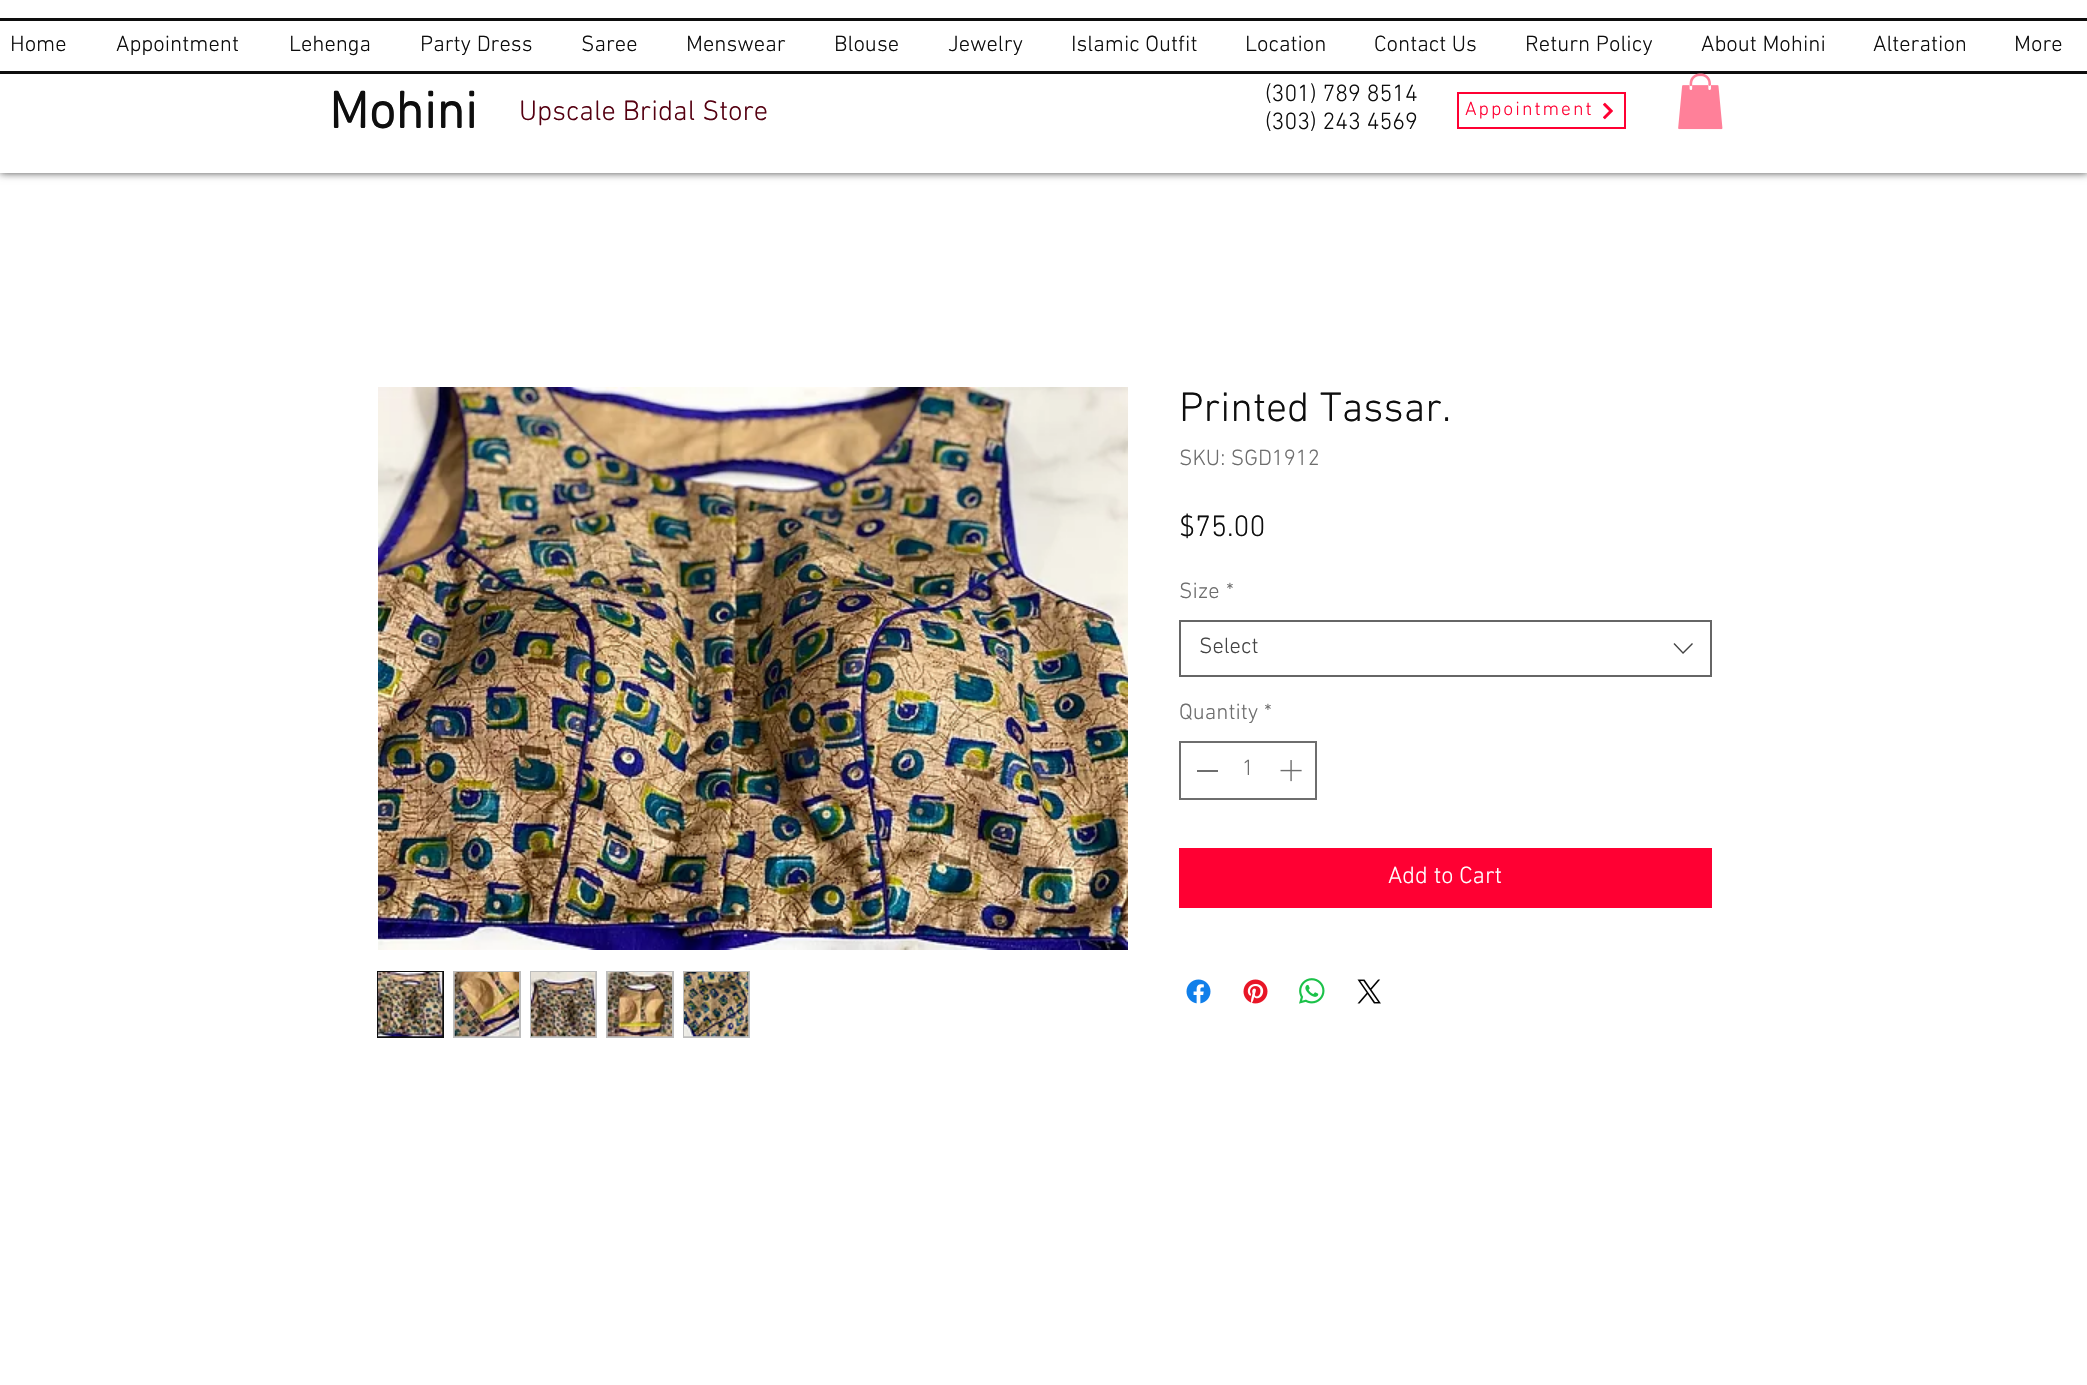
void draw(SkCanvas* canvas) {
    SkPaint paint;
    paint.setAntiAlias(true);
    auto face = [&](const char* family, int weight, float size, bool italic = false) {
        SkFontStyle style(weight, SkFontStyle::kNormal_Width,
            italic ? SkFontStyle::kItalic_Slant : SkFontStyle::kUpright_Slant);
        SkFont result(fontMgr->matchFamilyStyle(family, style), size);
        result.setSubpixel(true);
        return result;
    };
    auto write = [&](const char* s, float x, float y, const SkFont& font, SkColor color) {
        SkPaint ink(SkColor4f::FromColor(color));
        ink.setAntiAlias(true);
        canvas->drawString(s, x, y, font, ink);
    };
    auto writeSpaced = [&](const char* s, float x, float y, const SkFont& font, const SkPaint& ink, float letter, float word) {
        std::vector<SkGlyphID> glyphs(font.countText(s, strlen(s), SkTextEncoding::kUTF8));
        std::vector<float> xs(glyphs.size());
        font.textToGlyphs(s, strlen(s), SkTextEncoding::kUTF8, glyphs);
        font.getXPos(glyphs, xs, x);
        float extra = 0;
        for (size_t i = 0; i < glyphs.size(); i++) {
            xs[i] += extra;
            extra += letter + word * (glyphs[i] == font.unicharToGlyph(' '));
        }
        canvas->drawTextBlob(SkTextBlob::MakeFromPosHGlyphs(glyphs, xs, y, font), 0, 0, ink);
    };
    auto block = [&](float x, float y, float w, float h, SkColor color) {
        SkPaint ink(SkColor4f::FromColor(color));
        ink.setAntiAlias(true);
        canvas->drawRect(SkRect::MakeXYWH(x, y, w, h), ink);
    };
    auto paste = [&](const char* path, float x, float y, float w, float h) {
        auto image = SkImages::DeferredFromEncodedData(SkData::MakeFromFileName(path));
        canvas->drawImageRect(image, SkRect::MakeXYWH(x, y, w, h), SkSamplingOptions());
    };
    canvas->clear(SK_ColorWHITE);
    canvas->save();
    canvas->clipPath(SkPathBuilder(SkPathFillType::kEvenOdd).moveTo(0, 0).lineTo(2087, 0).lineTo(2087, 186).lineTo(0, 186).close().moveTo(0, 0).lineTo(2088, 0).lineTo(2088, 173).lineTo(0, 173).close().detach(), true);
    paint.setColor(SkColorSetARGB(179, 0, 0, 0));
    paint.setMaskFilter(SkMaskFilter::MakeBlur(kNormal_SkBlurStyle, 4));
    canvas->drawRect(SkRect::MakeXYWH(0, 0, 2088, 173), paint);
    paint.setMaskFilter(nullptr);
    canvas->restore();
    block(0, 172, 2087, 1, SkColorSetARGB(153, 255, 255, 255));
    block(0, 18, 2087, 3, SkColorSetRGB(14, 14, 14));
    block(0, 71, 2087, 3, SkColorSetRGB(14, 14, 14));
    auto kFont1 = face("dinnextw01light", 300, 22.5f);
    write("Home", 10, 51, kFont1, SkColorSetRGB(14, 14, 14));
    write("Appointment", 116, 51, kFont1, SkColorSetRGB(14, 14, 14));
    write("Lehenga", 289, 51, kFont1, SkColorSetRGB(14, 14, 14));
    write("Party Dress", 420, 51, kFont1, SkColorSetRGB(14, 14, 14));
    write("Saree", 581, 51, kFont1, SkColorSetRGB(14, 14, 14));
    write("Menswear", 686, 51, kFont1, SkColorSetRGB(14, 14, 14));
    write("Blouse", 834, 51, kFont1, SkColorSetRGB(14, 14, 14));
    write("Jewelry", 948, 51, kFont1, SkColorSetRGB(14, 14, 14));
    write("Islamic Outfit", 1071, 51, kFont1, SkColorSetRGB(14, 14, 14));
    write("Location", 1245, 51, kFont1, SkColorSetRGB(14, 14, 14));
    write("Contact Us", 1374, 51, kFont1, SkColorSetRGB(14, 14, 14));
    write("Return Policy", 1525, 51, kFont1, SkColorSetRGB(14, 14, 14));
    write("About Mohini", 1701, 51, kFont1, SkColorSetRGB(14, 14, 14));
    write("Alteration", 1873, 51, kFont1, SkColorSetRGB(14, 14, 14));
    write("More", 2014, 51, kFont1, SkColorSetRGB(14, 14, 14));
    auto kFont2 = face("dinnextw01light", 700, 52.5f);
    write("Mohini", 329, 128, kFont2, SkColorSetRGB(14, 14, 14));
    auto kFont3 = face("dinnextw01light", 300, 28.5f);
    write("Upscale Bridal Store", 519, 120, kFont3, SkColorSetRGB(85, 0, 17));
    auto kFont4 = face("dinnextw01light", 300, 24);
    write("(301) 789 8514", 1265, 101, kFont4, SkColorSetRGB(14, 14, 14));
    write("(303) 243 4569", 1265, 129, kFont4, SkColorSetRGB(14, 14, 14));
    paint.setStyle(SkPaint::kStroke_Style);
    paint.setStrokeWidth(2);
    paint.setColor(SkColorSetRGB(255, 0, 51));
    canvas->drawRect(SkRect::MakeXYWH(1458, 93, 167, 35), paint);
    auto kFont5 = face("dinnextw01light", 300, 19.5f);
    paint.setStyle(SkPaint::kFill_Style);
    writeSpaced("Appointment", 1465, 115, kFont5, paint, 2, 0);
    paste("pic1.png", 1603, 102, 10, 18);
    paste("pic2.png", 1678, 73, 45, 57);
    paste("pic3.png", 378, 387, 750, 563);
    paint.setStyle(SkPaint::kStroke_Style);
    paint.setColor(SkColorSetRGB(14, 14, 14));
    canvas->drawRect(SkRect::MakeXYWH(378, 972, 65, 65), paint);
    paste("pic4.png", 378, 972, 65, 65);
    block(453, 971, 68, 67, SkColorSetRGB(189, 189, 189));
    paste("pic5.png", 454, 972, 65, 65);
    block(530, 971, 67, 67, SkColorSetRGB(189, 189, 189));
    paste("pic6.png", 531, 972, 65, 65);
    block(606, 971, 68, 67, SkColorSetRGB(189, 189, 189));
    paste("pic7.png", 607, 972, 65, 65);
    block(683, 971, 67, 67, SkColorSetRGB(189, 189, 189));
    paste("pic8.png", 684, 972, 65, 65);
    auto kFont6 = face("dinnextw01light", 300, 42);
    write("Printed Tassar.", 1179, 421, kFont6, SkColorSetRGB(14, 14, 14));
    write("SKU: SGD1912", 1179, 465, kFont1, SkColorSetRGB(110, 110, 110));
    auto kFont7 = face("dinnextw01light", 300, 30);
    write("$75.00", 1179, 536, kFont7, SkColorSetRGB(14, 14, 14));
    write("Size", 1179, 598, kFont1, SkColorSetRGB(110, 110, 110));
    write("*", 1226, 598, kFont1, SkColorSetRGB(110, 110, 110));
    paint.setColor(SkColorSetRGB(102, 102, 102));
    canvas->drawRect(SkRect::MakeXYWH(1180, 621, 531, 55), paint);
    write("Select", 1199, 653, kFont1, SkColorSetRGB(68, 68, 68));
    paint.setStyle(SkPaint::kFill_Style);
    paint.setColor(SkColorSetRGB(68, 68, 68));
    canvas->drawPath(SkPathBuilder(SkPathFillType::kEvenOdd).moveTo(1692, 643).lineTo(1693, 644).lineTo(1683, 654).lineTo(1673.5f, 644).lineTo(1674.5f, 643).lineTo(1683, 652).close().detach(), paint);
    write("Quantity", 1179, 719, kFont1, SkColorSetRGB(110, 110, 110));
    write("*", 1264, 719, kFont1, SkColorSetRGB(110, 110, 110));
    paint.setStyle(SkPaint::kStroke_Style);
    paint.setColor(SkColorSetRGB(110, 110, 110));
    canvas->drawRect(SkRect::MakeXYWH(1180, 742, 136, 57), paint);
    block(1197, 770, 21, 2, SkColorSetRGB(110, 110, 110));
    write("1", 1242, 775, kFont1, SkColorSetRGB(110, 110, 110));
    paste("pic9.png", 1280, 760, 22, 22);
    block(1179, 848, 533, 60, SkColorSetRGB(255, 0, 51));
    write("Add to Cart", 1388, 883, kFont4, SK_ColorWHITE);
    paste("pic10.png", 1186, 979, 25, 25);
    paste("pic11.png", 1243, 979, 25, 25);
    paste("pic12.png", 1299, 978, 26, 26);
    paste("pic13.png", 1357, 979, 24, 25);
}
